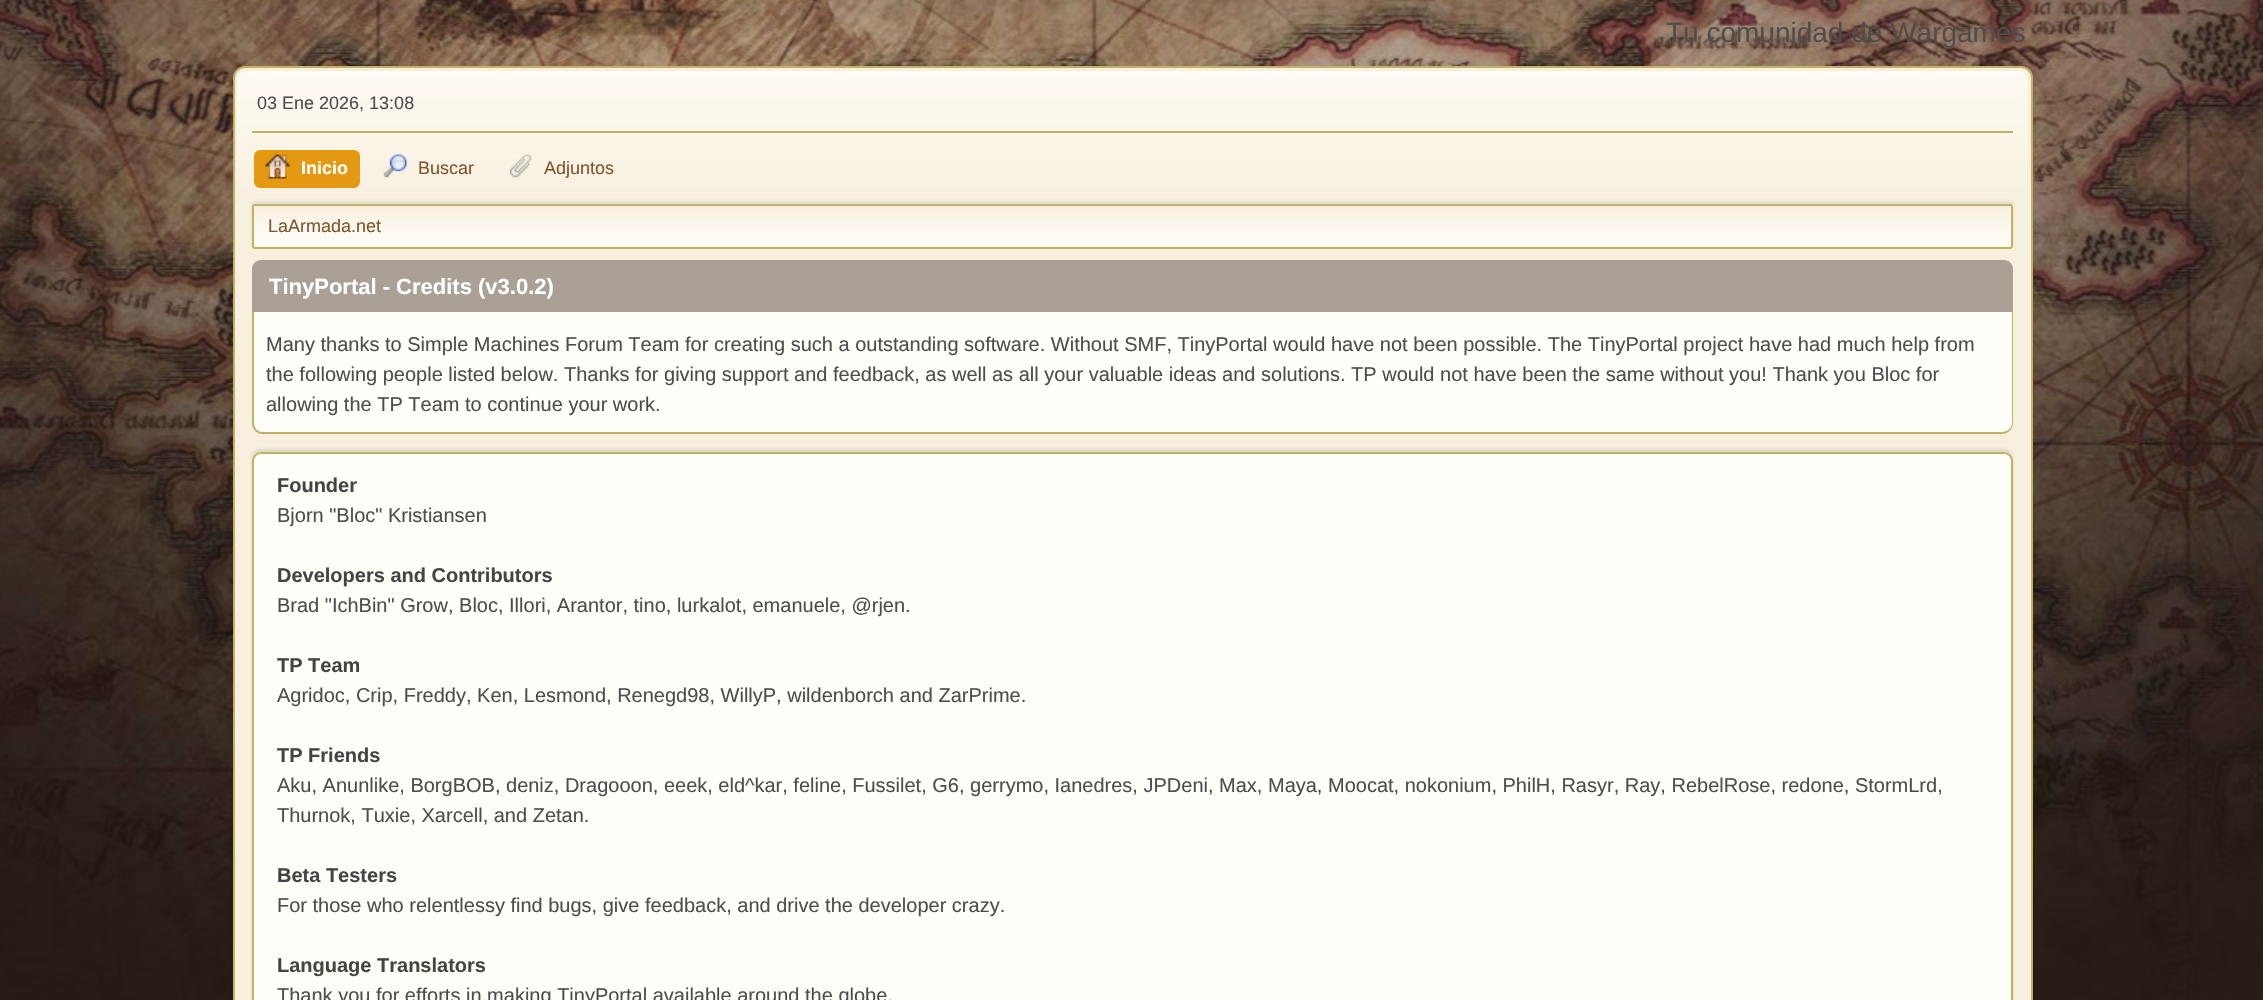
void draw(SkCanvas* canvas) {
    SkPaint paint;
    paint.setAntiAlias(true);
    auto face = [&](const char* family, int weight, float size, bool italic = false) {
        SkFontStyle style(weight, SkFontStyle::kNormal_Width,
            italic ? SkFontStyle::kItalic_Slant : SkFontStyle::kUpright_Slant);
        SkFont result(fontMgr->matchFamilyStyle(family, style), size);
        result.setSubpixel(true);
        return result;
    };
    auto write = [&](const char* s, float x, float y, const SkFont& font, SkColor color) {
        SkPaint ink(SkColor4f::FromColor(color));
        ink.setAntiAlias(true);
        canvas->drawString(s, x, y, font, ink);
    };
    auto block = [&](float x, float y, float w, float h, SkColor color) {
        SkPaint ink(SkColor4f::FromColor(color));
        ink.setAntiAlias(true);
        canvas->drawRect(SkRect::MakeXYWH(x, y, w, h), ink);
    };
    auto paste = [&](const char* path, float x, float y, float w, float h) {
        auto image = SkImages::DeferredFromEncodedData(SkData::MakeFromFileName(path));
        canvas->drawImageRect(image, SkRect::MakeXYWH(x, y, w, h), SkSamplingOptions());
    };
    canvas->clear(SK_ColorWHITE);
    paste("pic1.png", 0, 0, 2263, 1000);
    auto kFont1 = face("Liberation Sans", 400, 28);
    write("Tu comunidad de Wargames", 1666, 42, kFont1, SkColorSetRGB(77, 77, 77));
    paint.setColor(SkColorSetARGB(36, 0, 0, 0));
    paint.setMaskFilter(SkMaskFilter::MakeBlur(kNormal_SkBlurStyle, 2));
    canvas->drawRoundRect(SkRect::MakeXYWH(233, 69, 1800, 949), 12, 12, paint);
    paint.setMaskFilter(nullptr);
    paint.setColor(SkColorSetRGB(248, 239, 222));
    canvas->drawRoundRect(SkRect::MakeXYWH(234, 67, 1798, 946), 11, 11, paint);
    paint.setStyle(SkPaint::kStroke_Style);
    paint.setStrokeWidth(2);
    paint.setColor(SkColorSetRGB(191, 179, 99));
    canvas->drawRoundRect(SkRect::MakeXYWH(234, 67, 1798, 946), 11, 11, paint);
    paint.setStyle(SkPaint::kFill_Style);
    {
        const SkColor colors[] = {SkColorSetRGB(254, 251, 244), SkColorSetRGB(248, 240, 223)};
        const float stops[] = {0, 0.7f};
        const SkPoint ends[] = {{1133, 70}, {1133, 252}};
        paint.setShader(SkGradientShader::MakeLinear(ends, colors, stops, 2, SkTileMode::kClamp));
        paint.setAlpha(255);
    }
    canvas->drawPath(SkPathBuilder().moveTo(246, 71).lineTo(2019, 71).cubicTo(2024, 71, 2028, 75, 2028, 80).lineTo(2028, 252).lineTo(237, 252).lineTo(237, 80).cubicTo(237, 75, 241, 71, 246, 71).close().detach(), paint);
    block(252, 131, 1761, 2, SkColorSetRGB(191, 179, 99));
    auto kFont2 = face("Liberation Sans", 400, 18);
    write("03 Ene 2026, 13:08", 257, 109, kFont2, SkColorSetRGB(77, 77, 77));
    paint.setShader(nullptr);
    paint.setColor(SkColorSetRGB(227, 154, 18));
    canvas->drawRoundRect(SkRect::MakeXYWH(255, 151, 104, 36), 5, 5, paint);
    paint.setStyle(SkPaint::kStroke_Style);
    canvas->drawRoundRect(SkRect::MakeXYWH(255, 151, 104, 36), 5, 5, paint);
    paste("pic2.png", 265, 154, 25, 25);
    auto kFont3 = face("Liberation Sans", 700, 18);
    write("Inicio", 301, 174, kFont3, SK_ColorWHITE);
    paste("pic3.png", 383, 154, 24, 24);
    write("Buscar", 418, 174, kFont2, SkColorSetRGB(129, 86, 46));
    paste("pic4.png", 509, 154, 23, 24);
    write("Adjuntos", 544, 174, kFont2, SkColorSetRGB(129, 86, 46));
    paint.setStyle(SkPaint::kFill_Style);
    paint.setColor(SkColorSetARGB(20, 0, 0, 0));
    paint.setMaskFilter(SkMaskFilter::MakeBlur(kNormal_SkBlurStyle, 1.5f));
    canvas->drawRoundRect(SkRect::MakeXYWH(252, 201, 1761, 45), 3, 3, paint);
    paint.setMaskFilter(nullptr);
    canvas->save();
    canvas->clipPath(SkPathBuilder().moveTo(255, 204).lineTo(2010, 204).cubicTo(2011.5f, 204, 2013, 205.5f, 2013, 207).lineTo(2013, 246).cubicTo(2013, 247.5f, 2011.5f, 249, 2010, 249).lineTo(255, 249).cubicTo(253.5f, 249, 252, 247.5f, 252, 246).lineTo(252, 207).cubicTo(252, 205.5f, 253.5f, 204, 255, 204).close().detach(), true);
    {
        const SkColor colors[] = {SkColorSetRGB(248, 239, 222), SkColorSetRGB(254, 251, 244)};
        const float stops[] = {0, 0.7f};
        const SkPoint ends[] = {{1133, 205}, {1133, 248}};
        paint.setShader(SkGradientShader::MakeLinear(ends, colors, stops, 2, SkTileMode::kClamp));
        paint.setAlpha(255);
    }
    canvas->drawRect(SkRect::MakeXYWH(252, 206, 1761, 42), paint);
    canvas->restore();
    paint.setStyle(SkPaint::kStroke_Style);
    paint.setShader(nullptr);
    paint.setColor(SkColorSetRGB(191, 179, 99));
    canvas->drawRoundRect(SkRect::MakeXYWH(253, 205, 1759, 43), 2, 2, paint);
    write("LaArmada.net", 268, 232, kFont2, SkColorSetRGB(129, 86, 46));
    paint.setStyle(SkPaint::kFill_Style);
    paint.setColor(SkColorSetRGB(170, 160, 150));
    canvas->drawPath(SkPathBuilder().moveTo(261, 260).lineTo(2004, 260).cubicTo(2009, 260, 2013, 264, 2013, 269).lineTo(2013, 312).lineTo(252, 312).lineTo(252, 269).cubicTo(252, 264, 256, 260, 261, 260).close().detach(), paint);
    auto kFont4 = face("Liberation Sans", 700, 22);
    write("TinyPortal - Credits (v3.0.2)", 269, 294, kFont4, SK_ColorWHITE);
    paint.setColor(SkColorSetRGB(255, 255, 249));
    canvas->drawPath(SkPathBuilder().moveTo(252, 312).lineTo(2013, 312).lineTo(2013, 423).cubicTo(2013, 429, 2008, 434, 2002, 434).lineTo(263, 434).cubicTo(257, 434, 252, 429, 252, 423).close().detach(), paint);
    paint.setColor(SkColorSetRGB(191, 179, 99));
    canvas->drawPath(SkPathBuilder(SkPathFillType::kEvenOdd).moveTo(252, 312).lineTo(2013, 312).lineTo(2013, 423).cubicTo(2013, 429, 2008, 434, 2002, 434).lineTo(262, 434).cubicTo(257, 434, 252, 429, 252, 423).close().moveTo(254, 312).lineTo(2012, 312).lineTo(2012, 423).cubicTo(2012, 428, 2007, 432, 2002, 432).lineTo(262, 432).cubicTo(258, 432, 254, 428, 254, 423).close().detach(), paint);
    auto kFont5 = face("Liberation Sans", 400, 20);
    write("Many thanks to Simple Machines Forum Team for creating such a outstanding software. Without SMF, TinyPortal would have not been possible. The TinyPortal project have had much help from", 266, 351, kFont5, SkColorSetRGB(77, 77, 77));
    write("the following people listed below. Thanks for giving support and feedback, as well as all your valuable ideas and solutions. TP would not have been the same without you! Thank you Bloc for", 266, 381, kFont5, SkColorSetRGB(77, 77, 77));
    write("allowing the TP Team to continue your work.", 266, 411, kFont5, SkColorSetRGB(77, 77, 77));
    canvas->save();
    canvas->clipPath(SkPathBuilder(SkPathFillType::kEvenOdd).moveTo(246, 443).lineTo(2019, 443).lineTo(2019, 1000).lineTo(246, 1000).close().moveTo(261, 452).lineTo(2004, 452).cubicTo(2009, 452, 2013, 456, 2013, 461).lineTo(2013, 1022).cubicTo(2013, 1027, 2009, 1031, 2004, 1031).lineTo(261, 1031).cubicTo(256, 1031, 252, 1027, 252, 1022).lineTo(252, 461).cubicTo(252, 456, 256, 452, 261, 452).close().detach(), true);
    paint.setColor(SkColorSetARGB(26, 0, 0, 0));
    paint.setMaskFilter(SkMaskFilter::MakeBlur(kNormal_SkBlurStyle, 1.5f));
    canvas->drawRoundRect(SkRect::MakeXYWH(252, 449, 1761, 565), 9, 9, paint);
    paint.setMaskFilter(nullptr);
    canvas->restore();
    paint.setColor(SkColorSetRGB(255, 255, 249));
    canvas->drawRoundRect(SkRect::MakeXYWH(253, 453, 1759, 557), 8, 8, paint);
    paint.setStyle(SkPaint::kStroke_Style);
    paint.setColor(SkColorSetRGB(191, 179, 99));
    canvas->drawRoundRect(SkRect::MakeXYWH(253, 453, 1759, 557), 8, 8, paint);
    auto kFont6 = face("Liberation Sans", 700, 20);
    write("Founder", 277, 492, kFont6, SkColorSetRGB(68, 68, 68));
    write("Bjorn \"Bloc\" Kristiansen", 277, 522, kFont5, SkColorSetRGB(77, 77, 77));
    write("Developers and Contributors", 277, 582, kFont6, SkColorSetRGB(68, 68, 68));
    write("Brad \"IchBin\" Grow, Bloc, Illori, Arantor, tino, lurkalot, emanuele, @rjen.", 277, 612, kFont5, SkColorSetRGB(77, 77, 77));
    write("TP Team", 277, 672, kFont6, SkColorSetRGB(68, 68, 68));
    write("Agridoc, Crip, Freddy, Ken, Lesmond, Renegd98, WillyP, wildenborch and ZarPrime.", 277, 702, kFont5, SkColorSetRGB(77, 77, 77));
    write("TP Friends", 277, 762, kFont6, SkColorSetRGB(68, 68, 68));
    write("Aku, Anunlike, BorgBOB, deniz, Dragooon, eeek, eld^kar, feline, Fussilet, G6, gerrymo, Ianedres, JPDeni, Max, Maya, Moocat, nokonium, PhilH, Rasyr, Ray, RebelRose, redone, StormLrd,", 277, 792, kFont5, SkColorSetRGB(77, 77, 77));
    write("Thurnok, Tuxie, Xarcell, and Zetan.", 277, 822, kFont5, SkColorSetRGB(77, 77, 77));
    write("Beta Testers", 277, 882, kFont6, SkColorSetRGB(68, 68, 68));
    write("For those who relentlessy find bugs, give feedback, and drive the developer crazy.", 277, 912, kFont5, SkColorSetRGB(77, 77, 77));
    write("Language Translators", 277, 972, kFont6, SkColorSetRGB(68, 68, 68));
    write("Thank you for efforts in making TinyPortal available around the globe.", 277, 1002, kFont5, SkColorSetRGB(77, 77, 77));
}
